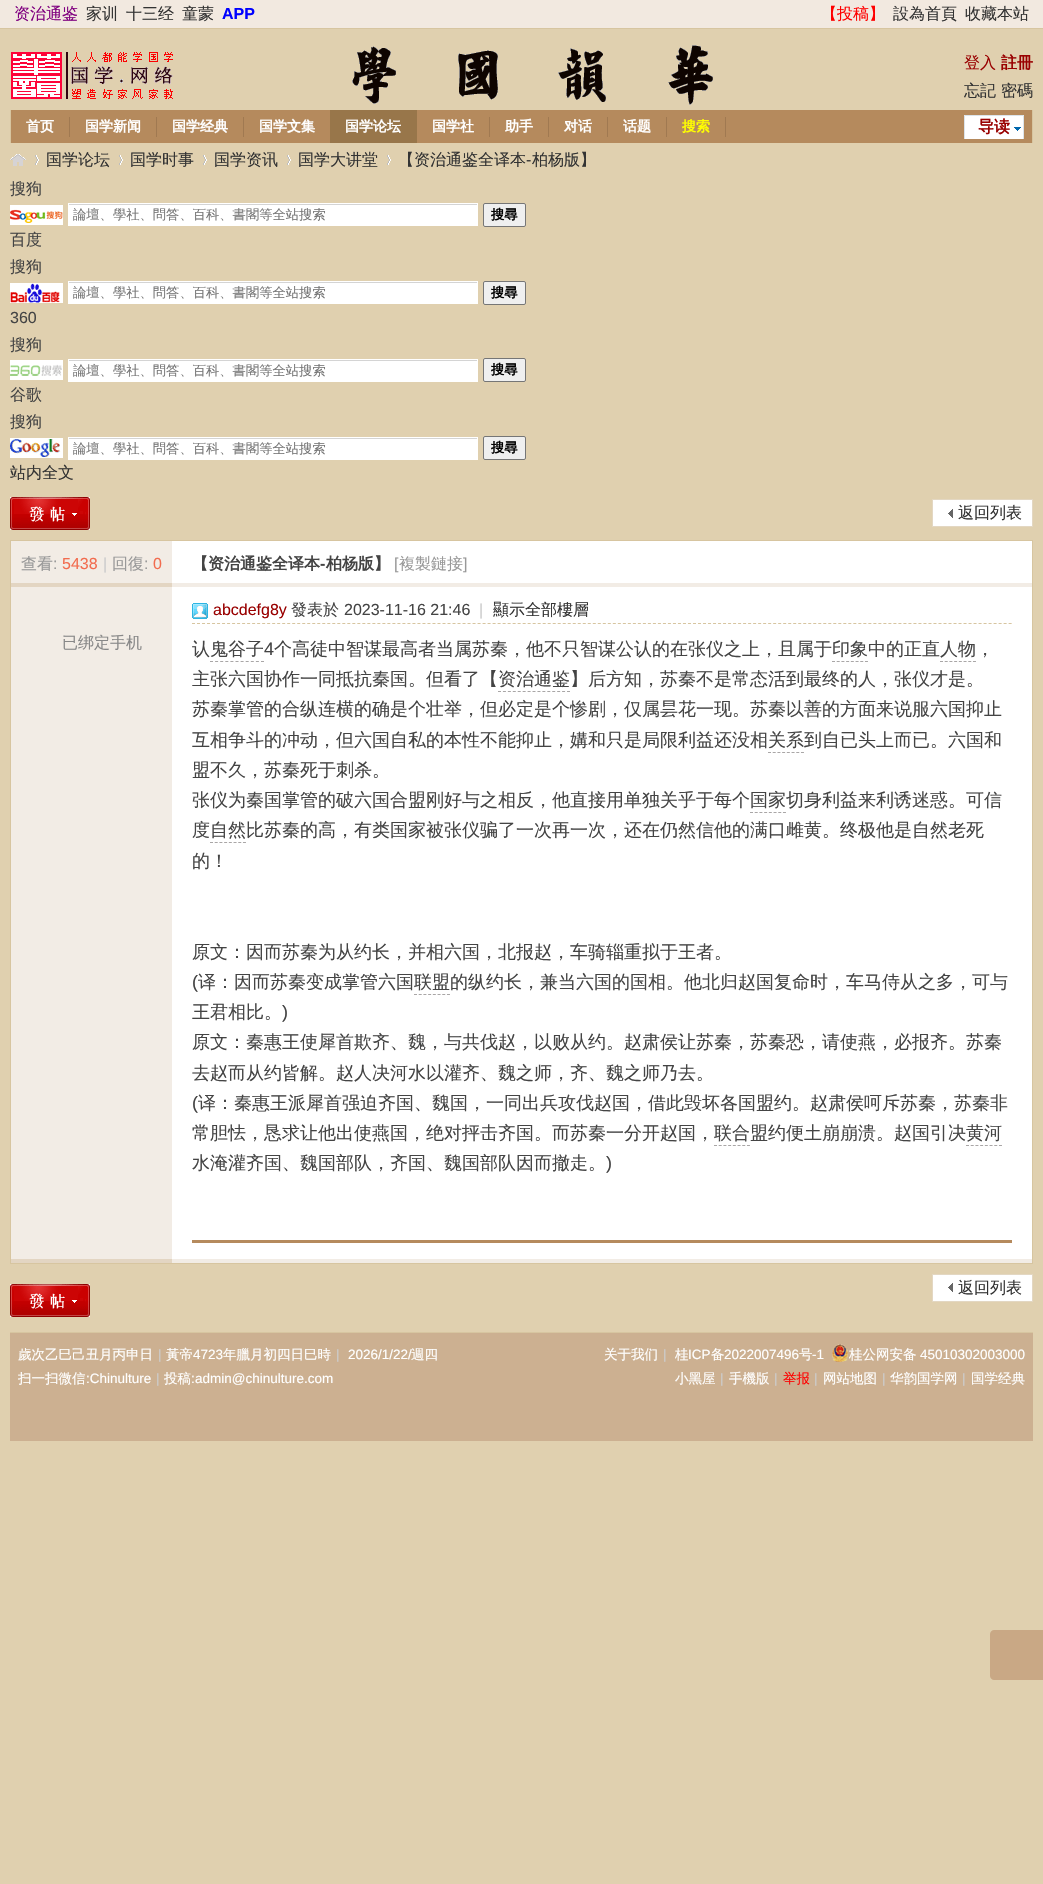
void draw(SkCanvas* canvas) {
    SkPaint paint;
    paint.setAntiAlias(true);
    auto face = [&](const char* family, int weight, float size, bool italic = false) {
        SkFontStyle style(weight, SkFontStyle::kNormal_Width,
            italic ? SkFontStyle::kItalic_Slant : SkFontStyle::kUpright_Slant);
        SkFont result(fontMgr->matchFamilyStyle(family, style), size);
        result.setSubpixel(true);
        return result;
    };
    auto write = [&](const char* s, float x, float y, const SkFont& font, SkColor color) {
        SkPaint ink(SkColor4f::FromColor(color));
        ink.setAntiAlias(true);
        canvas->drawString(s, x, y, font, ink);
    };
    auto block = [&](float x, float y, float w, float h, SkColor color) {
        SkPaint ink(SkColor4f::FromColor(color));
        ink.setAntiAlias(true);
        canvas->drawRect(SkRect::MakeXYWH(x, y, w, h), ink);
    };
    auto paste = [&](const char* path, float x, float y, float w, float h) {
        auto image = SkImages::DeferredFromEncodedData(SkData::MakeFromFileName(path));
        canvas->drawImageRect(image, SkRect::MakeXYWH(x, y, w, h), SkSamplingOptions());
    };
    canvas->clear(SkColorSetRGB(224, 208, 175));
    block(0, 0, 1043, 28, SkColorSetRGB(242, 233, 224));
    block(0, 28, 1043, 1, SkColorSetRGB(215, 197, 160));
    auto kFont1 = face("WenQuanYi Zen Hei", 500, 16);
    write("资治通鉴", 14, 19, kFont1, SkColorSetRGB(128, 0, 128));
    write("家训", 86, 19, kFont1, SkColorSetRGB(51, 51, 51));
    write("十三经", 126, 19, kFont1, SkColorSetRGB(51, 51, 51));
    write("童蒙", 182, 19, kFont1, SkColorSetRGB(51, 51, 51));
    auto kFont2 = face("Liberation Sans", 700, 16);
    write("APP", 222, 19, kFont2, SkColorSetRGB(0, 0, 255));
    write("【投稿】", 821, 19, kFont1, SkColorSetRGB(255, 0, 0));
    write("設為首頁", 893, 19, kFont1, SkColorSetRGB(51, 51, 51));
    write("收藏本站", 965, 19, kFont1, SkColorSetRGB(51, 51, 51));
    paste("pic1.png", 352, 45, 361, 60);
    paste("pic2.png", 11, 52, 162, 47);
    write("登入", 964, 68, kFont1, SkColorSetRGB(153, 0, 0));
    auto kFont3 = face("WenQuanYi Zen Hei", 700, 16);
    write("註冊", 1001, 68, kFont3, SkColorSetRGB(153, 0, 0));
    write("忘記", 964, 96, kFont1, SkColorSetRGB(51, 51, 51));
    write("密碼", 1001, 96, kFont1, SkColorSetRGB(51, 51, 51));
    block(11, 110, 1021, 33, SkColorSetRGB(181, 138, 93));
    block(1032, 110, 1, 33, SkColorSetRGB(215, 197, 160));
    block(10, 110, 1, 33, SkColorSetRGB(215, 197, 160));
    block(69, 117, 1, 20, SkColorSetRGB(160, 121, 81));
    auto kFont4 = face("WenQuanYi Zen Hei", 700, 14);
    write("首页", 26, 131, kFont4, SK_ColorWHITE);
    block(156, 117, 1, 20, SkColorSetRGB(160, 121, 81));
    write("国学新闻", 85, 131, kFont4, SK_ColorWHITE);
    block(243, 117, 1, 20, SkColorSetRGB(160, 121, 81));
    write("国学经典", 172, 131, kFont4, SK_ColorWHITE);
    write("国学文集", 259, 131, kFont4, SK_ColorWHITE);
    block(330, 110, 87, 33, SkColorSetRGB(152, 118, 74));
    write("国学论坛", 345, 131, kFont4, SK_ColorWHITE);
    block(489, 117, 1, 20, SkColorSetRGB(160, 121, 81));
    write("国学社", 432, 131, kFont4, SK_ColorWHITE);
    block(548, 117, 1, 20, SkColorSetRGB(160, 121, 81));
    write("助手", 505, 131, kFont4, SK_ColorWHITE);
    block(607, 117, 1, 20, SkColorSetRGB(160, 121, 81));
    write("对话", 564, 131, kFont4, SK_ColorWHITE);
    block(666, 117, 1, 20, SkColorSetRGB(160, 121, 81));
    write("话题", 623, 131, kFont4, SK_ColorWHITE);
    block(725, 117, 1, 20, SkColorSetRGB(160, 121, 81));
    write("搜索", 682, 131, kFont4, SkColorSetRGB(255, 255, 0));
    paste("pic3.png", 964, 115, 60, 24);
    write("导读", 978, 132, kFont3, SkColorSetRGB(153, 0, 0));
    paste("pic4.png", 10, 154, 16, 12);
    paste("pic5.png", 35, 155, 4, 10);
    write("国学论坛", 46, 165, kFont1, SkColorSetRGB(51, 51, 51));
    paste("pic5.png", 119, 155, 4, 10);
    write("国学时事", 130, 165, kFont1, SkColorSetRGB(51, 51, 51));
    paste("pic5.png", 203, 155, 4, 10);
    write("国学资讯", 214, 165, kFont1, SkColorSetRGB(51, 51, 51));
    paste("pic5.png", 287, 155, 4, 10);
    write("国学大讲堂", 298, 165, kFont1, SkColorSetRGB(51, 51, 51));
    paste("pic5.png", 387, 155, 4, 10);
    write("【资治通鉴全译本", 398, 165, kFont1, SkColorSetRGB(51, 51, 51));
    auto kFont5 = face("Liberation Sans", 400, 16);
    write("-", 526, 165, kFont5, SkColorSetRGB(51, 51, 51));
    write("柏杨版】", 532, 165, kFont1, SkColorSetRGB(51, 51, 51));
    write("搜狗", 10, 194, kFont1, SkColorSetRGB(68, 68, 68));
    paste("pic6.png", 10, 205, 53, 20);
    block(69, 205, 408, 20, SK_ColorWHITE);
    block(68, 204, 410, 1, SkColorSetRGB(212, 212, 212));
    paint.setStyle(SkPaint::kStroke_Style);
    paint.setStrokeWidth(1);
    paint.setColor(SK_ColorWHITE);
    canvas->drawRect(SkRect::MakeXYWH(68.5f, 203.5f, 409, 22), paint);
    auto kFont6 = face("WenQuanYi Zen Hei", 500, 13.3f);
    write("論壇、學社、問答、百科、書閣等全站搜索", 73, 219, kFont6, SkColorSetRGB(117, 117, 117));
    paint.setStyle(SkPaint::kFill_Style);
    paint.setColor(SkColorSetRGB(239, 239, 239));
    canvas->drawRoundRect(SkRect::MakeXYWH(483.5f, 203.5f, 42, 23), 1.5f, 1.5f, paint);
    paint.setStyle(SkPaint::kStroke_Style);
    paint.setColor(SkColorSetRGB(118, 118, 118));
    canvas->drawRoundRect(SkRect::MakeXYWH(483.5f, 203.5f, 42, 23), 1.5f, 1.5f, paint);
    auto kFont7 = face("WenQuanYi Zen Hei", 700, 13.3f);
    write("搜尋", 491, 219, kFont7, SK_ColorBLACK);
    write("百度", 10, 245, kFont1, SkColorSetRGB(68, 68, 68));
    write("搜狗", 10, 272, kFont1, SkColorSetRGB(68, 68, 68));
    paste("pic7.png", 10, 283, 53, 20);
    block(69, 283, 408, 20, SK_ColorWHITE);
    block(68, 282, 410, 1, SkColorSetRGB(212, 212, 212));
    paint.setColor(SK_ColorWHITE);
    canvas->drawRect(SkRect::MakeXYWH(68.5f, 281.5f, 409, 22), paint);
    write("論壇、學社、問答、百科、書閣等全站搜索", 73, 297, kFont6, SkColorSetRGB(117, 117, 117));
    paint.setStyle(SkPaint::kFill_Style);
    paint.setColor(SkColorSetRGB(239, 239, 239));
    canvas->drawRoundRect(SkRect::MakeXYWH(483.5f, 281.5f, 42, 23), 1.5f, 1.5f, paint);
    paint.setStyle(SkPaint::kStroke_Style);
    paint.setColor(SkColorSetRGB(118, 118, 118));
    canvas->drawRoundRect(SkRect::MakeXYWH(483.5f, 281.5f, 42, 23), 1.5f, 1.5f, paint);
    write("搜尋", 491, 297, kFont7, SK_ColorBLACK);
    write("360", 10, 323, kFont5, SkColorSetRGB(68, 68, 68));
    write("搜狗", 10, 350, kFont1, SkColorSetRGB(68, 68, 68));
    paste("pic8.png", 10, 360, 53, 20);
    block(69, 361, 408, 20, SK_ColorWHITE);
    block(68, 360, 410, 1, SkColorSetRGB(212, 212, 212));
    paint.setColor(SK_ColorWHITE);
    canvas->drawRect(SkRect::MakeXYWH(68.5f, 359.5f, 409, 22), paint);
    write("論壇、學社、問答、百科、書閣等全站搜索", 73, 375, kFont6, SkColorSetRGB(117, 117, 117));
    paint.setStyle(SkPaint::kFill_Style);
    paint.setColor(SkColorSetRGB(239, 239, 239));
    canvas->drawRoundRect(SkRect::MakeXYWH(483.5f, 358.5f, 42, 23), 1.5f, 1.5f, paint);
    paint.setStyle(SkPaint::kStroke_Style);
    paint.setColor(SkColorSetRGB(118, 118, 118));
    canvas->drawRoundRect(SkRect::MakeXYWH(483.5f, 358.5f, 42, 23), 1.5f, 1.5f, paint);
    write("搜尋", 491, 374, kFont7, SK_ColorBLACK);
    write("谷歌", 10, 400, kFont1, SkColorSetRGB(68, 68, 68));
    write("搜狗", 10, 427, kFont1, SkColorSetRGB(68, 68, 68));
    paste("pic9.png", 10, 438, 53, 20);
    block(69, 439, 408, 20, SK_ColorWHITE);
    block(68, 438, 410, 1, SkColorSetRGB(212, 212, 212));
    paint.setColor(SK_ColorWHITE);
    canvas->drawRect(SkRect::MakeXYWH(68.5f, 437.5f, 409, 22), paint);
    write("論壇、學社、問答、百科、書閣等全站搜索", 73, 453, kFont6, SkColorSetRGB(117, 117, 117));
    paint.setStyle(SkPaint::kFill_Style);
    paint.setColor(SkColorSetRGB(239, 239, 239));
    canvas->drawRoundRect(SkRect::MakeXYWH(483.5f, 436.5f, 42, 23), 1.5f, 1.5f, paint);
    paint.setStyle(SkPaint::kStroke_Style);
    paint.setColor(SkColorSetRGB(118, 118, 118));
    canvas->drawRoundRect(SkRect::MakeXYWH(483.5f, 436.5f, 42, 23), 1.5f, 1.5f, paint);
    write("搜尋", 491, 452, kFont7, SK_ColorBLACK);
    write("站内全文", 10, 478, kFont1, SkColorSetRGB(51, 51, 51));
    paste("pic10.png", 10, 497, 80, 33);
    block(933, 500, 99, 26, SK_ColorWHITE);
    paste("pic11.png", 948, 509, 5, 9);
    paint.setColor(SkColorSetRGB(227, 215, 194));
    canvas->drawRect(SkRect::MakeXYWH(932.5f, 499.5f, 100, 27), paint);
    write("返回列表", 958, 518, kFont1, SkColorSetRGB(51, 51, 51));
    block(172, 541, 860, 718, SK_ColorWHITE);
    paint.setColor(SkColorSetRGB(215, 197, 160));
    canvas->drawRect(SkRect::MakeXYWH(10.5f, 540.5f, 1022, 723), paint);
    block(11, 541, 161, 42, SkColorSetRGB(242, 236, 229));
    write("查看", 21, 569, kFont1, SkColorSetRGB(153, 153, 153));
    write(":", 53, 569, kFont5, SkColorSetRGB(153, 153, 153));
    write("5438", 62, 569, kFont5, SkColorSetRGB(242, 108, 79));
    write("|", 103, 569, kFont5, SkColorSetRGB(204, 204, 204));
    write("回復", 112, 569, kFont1, SkColorSetRGB(153, 153, 153));
    write(":", 144, 569, kFont5, SkColorSetRGB(153, 153, 153));
    write("0", 153, 569, kFont5, SkColorSetRGB(242, 108, 79));
    write("【资治通鉴全译本", 192, 569, kFont3, SkColorSetRGB(68, 68, 68));
    write("-", 320, 569, kFont2, SkColorSetRGB(68, 68, 68));
    write("柏杨版】", 326, 569, kFont3, SkColorSetRGB(68, 68, 68));
    write("[", 394, 569, kFont5, SkColorSetRGB(153, 153, 153));
    write("複製鏈接", 399, 569, kFont1, SkColorSetRGB(153, 153, 153));
    write("]", 463, 569, kFont5, SkColorSetRGB(153, 153, 153));
    block(11, 583, 161, 4, SkColorSetRGB(227, 213, 194));
    block(172, 583, 860, 4, SkColorSetRGB(242, 236, 229));
    block(11, 587, 161, 672, SkColorSetRGB(242, 236, 229));
    write("已绑定手机", 62, 648, kFont1, SkColorSetRGB(136, 136, 136));
    paint.setPathEffect(SkDashPathEffect::Make({{3, 2.01f}}, 0));
    canvas->drawPath(SkPathBuilder().moveTo(192, 623.5f).lineTo(1012, 623.5f).detach(), paint);
    paint.setPathEffect(nullptr);
    paste("pic12.png", 192, 603, 16, 16);
    write("abcdefg8y", 213, 615, kFont5, SkColorSetRGB(153, 0, 0));
    write("發表於", 291, 615, kFont1, SkColorSetRGB(68, 68, 68));
    write("2023-11-16 21:46", 344, 615, kFont5, SkColorSetRGB(68, 68, 68));
    write("|", 479, 615, kFont5, SkColorSetRGB(204, 204, 204));
    write("顯示全部樓層", 493, 615, kFont1, SkColorSetRGB(51, 51, 51));
    block(192, 1240, 820, 3, SkColorSetRGB(181, 138, 93));
    auto kFont8 = face("WenQuanYi Zen Hei", 500, 18);
    write("认鬼谷子", 192, 655, kFont8, SkColorSetRGB(68, 68, 68));
    auto kFont9 = face("Liberation Sans", 400, 18);
    write("4", 264, 655, kFont9, SkColorSetRGB(68, 68, 68));
    write("个高徒中智谋最高者当属苏秦，他不只智谋公认的在张仪之上，且属于印象中的正直人物，", 274, 655, kFont8, SkColorSetRGB(68, 68, 68));
    paint.setColor(SkColorSetRGB(169, 166, 166));
    paint.setPathEffect(SkDashPathEffect::Make({{3, 2.1f}}, 0));
    canvas->drawPath(SkPathBuilder().moveTo(210, 661.5f).lineTo(264, 661.5f).detach(), paint);
    paint.setPathEffect(nullptr);
    paint.setPathEffect(SkDashPathEffect::Make({{3, 1.71f}}, 0));
    canvas->drawPath(SkPathBuilder().moveTo(832, 661.5f).lineTo(868, 661.5f).detach(), paint);
    paint.setPathEffect(nullptr);
    paint.setPathEffect(SkDashPathEffect::Make({{3, 1.71f}}, 0));
    canvas->drawPath(SkPathBuilder().moveTo(940, 661.5f).lineTo(976, 661.5f).detach(), paint);
    paint.setPathEffect(nullptr);
    write("主张六国协作一同抵抗秦国。但看了【资治通鉴】后方知，苏秦不是常态活到最终的人，张仪才是。", 192, 685, kFont8, SkColorSetRGB(68, 68, 68));
    paint.setPathEffect(SkDashPathEffect::Make({{3, 1.93f}}, 0));
    canvas->drawPath(SkPathBuilder().moveTo(498, 691.5f).lineTo(570, 691.5f).detach(), paint);
    paint.setPathEffect(nullptr);
    write("苏秦掌管的合纵连横的确是个壮举，但必定是个惨剧，仅属昙花一现。苏秦以善的方面来说服六国抑止", 192, 715, kFont8, SkColorSetRGB(68, 68, 68));
    write("互相争斗的冲动，但六国自私的本性不能抑止，媾和只是局限利益还没相关系到自已头上而已。六国和", 192, 746, kFont8, SkColorSetRGB(68, 68, 68));
    paint.setPathEffect(SkDashPathEffect::Make({{3, 1.71f}}, 0));
    canvas->drawPath(SkPathBuilder().moveTo(768, 752.5f).lineTo(804, 752.5f).detach(), paint);
    paint.setPathEffect(nullptr);
    write("盟不久，苏秦死于刺杀。", 192, 776, kFont8, SkColorSetRGB(68, 68, 68));
    write("张仪为秦国掌管的破六国合盟刚好与之相反，他直接用单独关乎于每个国家切身利益来利诱迷惑。可信", 192, 806, kFont8, SkColorSetRGB(68, 68, 68));
    paint.setPathEffect(SkDashPathEffect::Make({{3, 1.71f}}, 0));
    canvas->drawPath(SkPathBuilder().moveTo(750, 812.5f).lineTo(786, 812.5f).detach(), paint);
    paint.setPathEffect(nullptr);
    write("度自然比苏秦的高，有类国家被张仪骗了一次再一次，还在仍然信他的满口雌黄。终极他是自然老死", 192, 836, kFont8, SkColorSetRGB(68, 68, 68));
    paint.setPathEffect(SkDashPathEffect::Make({{3, 1.71f}}, 0));
    canvas->drawPath(SkPathBuilder().moveTo(210, 842.5f).lineTo(246, 842.5f).detach(), paint);
    paint.setPathEffect(nullptr);
    write("的！", 192, 867, kFont8, SkColorSetRGB(68, 68, 68));
    write("原文：因而苏秦为从约长，并相六国，北报赵，车骑辎重拟于王者。", 192, 958, kFont8, SkColorSetRGB(68, 68, 68));
    write("(", 192, 988, kFont9, SkColorSetRGB(68, 68, 68));
    write("译：因而苏秦变成掌管六国联盟的纵约长，兼当六国的国相。他北归赵国复命时，车马侍从之多，可与", 198, 988, kFont8, SkColorSetRGB(68, 68, 68));
    paint.setPathEffect(SkDashPathEffect::Make({{3, 1.71f}}, 0));
    canvas->drawPath(SkPathBuilder().moveTo(414, 994.5f).lineTo(450, 994.5f).detach(), paint);
    paint.setPathEffect(nullptr);
    write("王君相比。", 192, 1018, kFont8, SkColorSetRGB(68, 68, 68));
    write(")", 282, 1018, kFont9, SkColorSetRGB(68, 68, 68));
    write("原文：秦惠王使犀首欺齐、魏，与共伐赵，以败从约。赵肃侯让苏秦，苏秦恐，请使燕，必报齐。苏秦", 192, 1048, kFont8, SkColorSetRGB(68, 68, 68));
    write("去赵而从约皆解。赵人决河水以灌齐、魏之师，齐、魏之师乃去。", 192, 1079, kFont8, SkColorSetRGB(68, 68, 68));
    write("(", 192, 1109, kFont9, SkColorSetRGB(68, 68, 68));
    write("译：秦惠王派犀首强迫齐国、魏国，一同出兵攻伐赵国，借此毁坏各国盟约。赵肃侯呵斥苏秦，苏秦非", 198, 1109, kFont8, SkColorSetRGB(68, 68, 68));
    write("常胆怯，恳求让他出使燕国，绝对抨击齐国。而苏秦一分开赵国，联合盟约便土崩崩溃。赵国引决黄河", 192, 1139, kFont8, SkColorSetRGB(68, 68, 68));
    paint.setPathEffect(SkDashPathEffect::Make({{3, 1.71f}}, 0));
    canvas->drawPath(SkPathBuilder().moveTo(714, 1145.5f).lineTo(750, 1145.5f).detach(), paint);
    paint.setPathEffect(nullptr);
    paint.setPathEffect(SkDashPathEffect::Make({{3, 1.71f}}, 0));
    canvas->drawPath(SkPathBuilder().moveTo(966, 1145.5f).lineTo(1002, 1145.5f).detach(), paint);
    paint.setPathEffect(nullptr);
    write("水淹灌齐国、魏国部队，齐国、魏国部队因而撤走。", 192, 1169, kFont8, SkColorSetRGB(68, 68, 68));
    write(")", 606, 1169, kFont9, SkColorSetRGB(68, 68, 68));
    block(11, 1259, 161, 4, SkColorSetRGB(227, 213, 194));
    block(172, 1259, 860, 4, SkColorSetRGB(242, 236, 229));
    paste("pic10.png", 10, 1284, 80, 33);
    block(933, 1275, 99, 26, SK_ColorWHITE);
    paste("pic11.png", 948, 1283, 5, 9);
    paint.setColor(SkColorSetRGB(227, 215, 194));
    canvas->drawRect(SkRect::MakeXYWH(932.5f, 1274.5f, 100, 27), paint);
    write("返回列表", 958, 1293, kFont1, SkColorSetRGB(51, 51, 51));
    block(10, 1333, 1023, 108, SkColorSetRGB(204, 176, 145));
    block(10, 1332, 1023, 1, SkColorSetRGB(215, 197, 160));
    auto kFont10 = face("WenQuanYi Zen Hei", 500, 13.5f);
    write("歲次乙巳己丑月丙申日", 18, 1359, kFont10, SK_ColorWHITE);
    auto kFont11 = face("Liberation Sans", 400, 13.5f);
    write("|", 158, 1359, kFont11, SkColorSetRGB(204, 204, 204));
    write("黃帝", 166, 1359, kFont10, SK_ColorWHITE);
    write("4723", 193, 1359, kFont11, SK_ColorWHITE);
    write("年臘月初四日巳時", 223, 1359, kFont10, SK_ColorWHITE);
    write("|", 336, 1359, kFont11, SkColorSetRGB(204, 204, 204));
    write("2026/1/22/", 348, 1359, kFont11, SK_ColorWHITE);
    write("週四", 411, 1359, kFont10, SK_ColorWHITE);
    write("扫一扫微信", 18, 1383, kFont10, SK_ColorWHITE);
    write(":Chinulture", 86, 1383, kFont11, SK_ColorWHITE);
    write("|", 156, 1383, kFont11, SkColorSetRGB(204, 204, 204));
    write("投稿", 164, 1383, kFont10, SK_ColorWHITE);
    write(":", 191, 1383, kFont11, SK_ColorWHITE);
    write("admin@chinulture.com", 195, 1383, kFont11, SK_ColorWHITE);
    write("关于我们", 604, 1359, kFont10, SK_ColorWHITE);
    write("|", 663, 1359, kFont11, SkColorSetRGB(204, 204, 204));
    write("桂", 675, 1359, kFont10, SK_ColorWHITE);
    write("ICP", 688, 1359, kFont11, SK_ColorWHITE);
    write("备", 711, 1359, kFont10, SK_ColorWHITE);
    write("2022007496", 724, 1359, kFont11, SK_ColorWHITE);
    write("号", 799, 1359, kFont10, SK_ColorWHITE);
    write("-1", 812, 1359, kFont11, SK_ColorWHITE);
    paste("pic13.png", 832, 1344, 16, 18);
    write("桂公网安备", 849, 1359, kFont10, SK_ColorWHITE);
    write("45010302003000", 920, 1359, kFont11, SK_ColorWHITE);
    write("小黑屋", 675, 1383, kFont10, SK_ColorWHITE);
    write("|", 720, 1383, kFont11, SkColorSetRGB(204, 204, 204));
    write("手機版", 729, 1383, kFont10, SK_ColorWHITE);
    write("|", 774, 1383, kFont11, SkColorSetRGB(204, 204, 204));
    write("举报", 783, 1383, kFont10, SkColorSetRGB(255, 0, 0));
    write("|", 814, 1383, kFont11, SkColorSetRGB(204, 204, 204));
    write("网站地图", 823, 1383, kFont10, SK_ColorWHITE);
    write("|", 882, 1383, kFont11, SkColorSetRGB(204, 204, 204));
    write("华韵国学网", 890, 1383, kFont10, SK_ColorWHITE);
    write("|", 962, 1383, kFont11, SkColorSetRGB(204, 204, 204));
    write("国学经典", 971, 1383, kFont10, SK_ColorWHITE);
    paint.setStyle(SkPaint::kFill_Style);
    paint.setColor(SkColorSetRGB(201, 168, 133));
    canvas->drawPath(SkPathBuilder().moveTo(994, 1630).lineTo(1043, 1630).lineTo(1043, 1680).lineTo(994, 1680).cubicTo(992, 1680, 990, 1678, 990, 1676).lineTo(990, 1634).cubicTo(990, 1632, 992, 1630, 994, 1630).close().detach(), paint);
}
